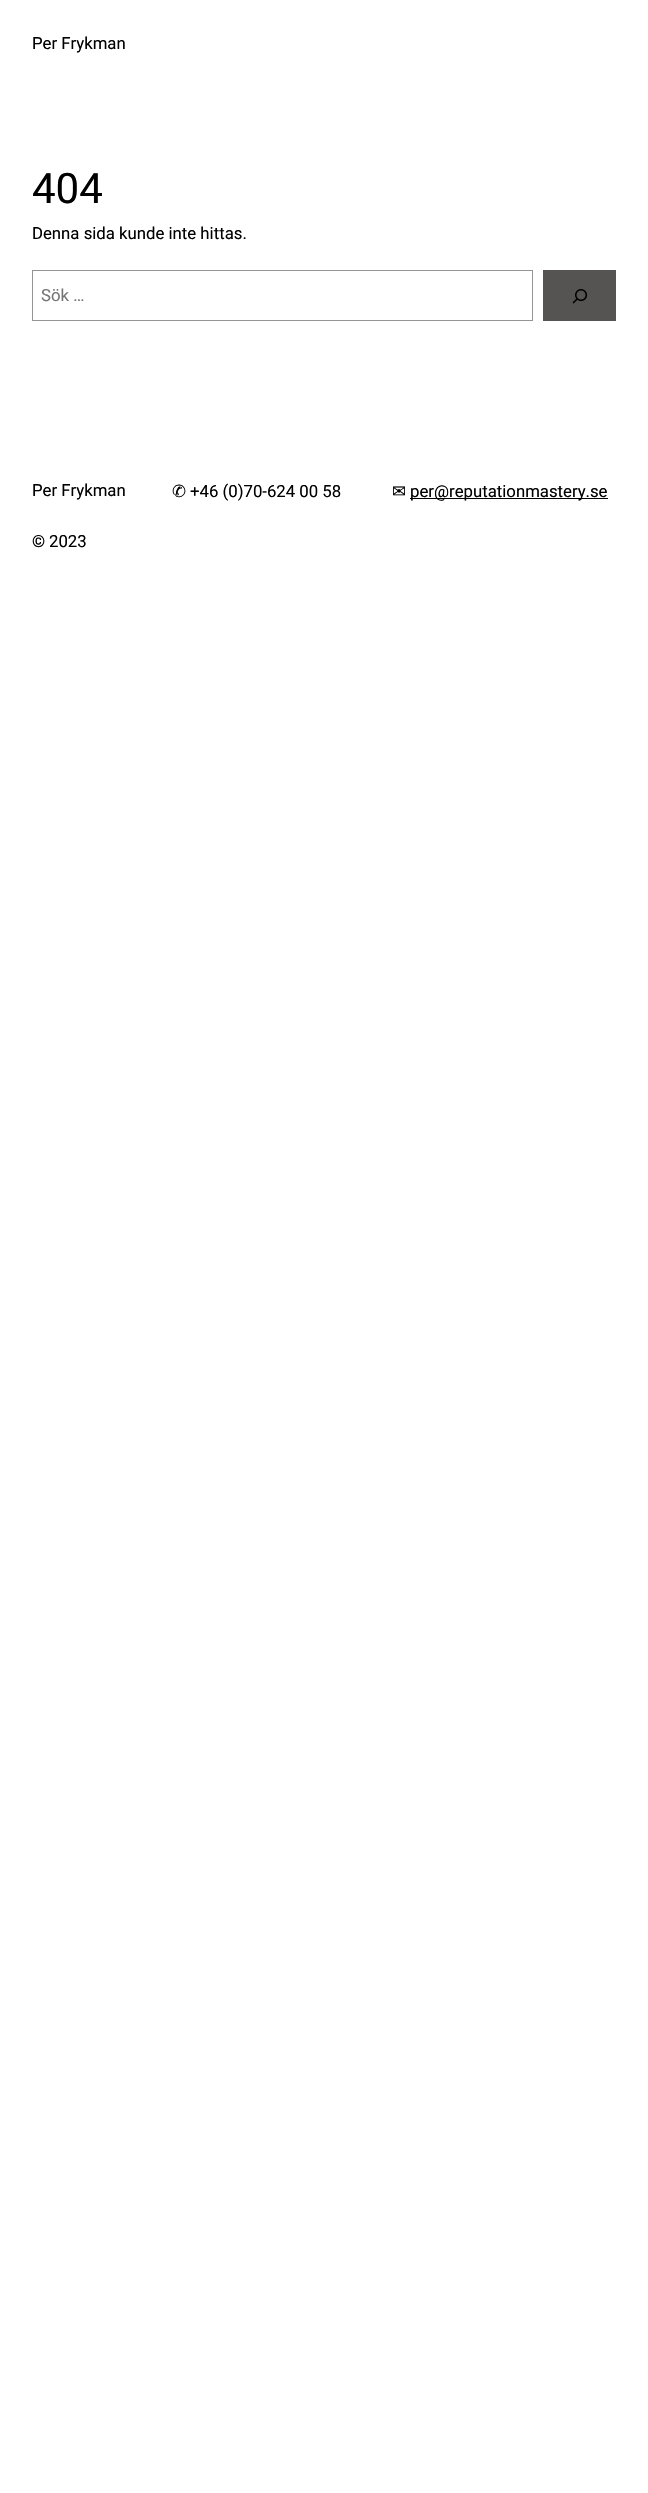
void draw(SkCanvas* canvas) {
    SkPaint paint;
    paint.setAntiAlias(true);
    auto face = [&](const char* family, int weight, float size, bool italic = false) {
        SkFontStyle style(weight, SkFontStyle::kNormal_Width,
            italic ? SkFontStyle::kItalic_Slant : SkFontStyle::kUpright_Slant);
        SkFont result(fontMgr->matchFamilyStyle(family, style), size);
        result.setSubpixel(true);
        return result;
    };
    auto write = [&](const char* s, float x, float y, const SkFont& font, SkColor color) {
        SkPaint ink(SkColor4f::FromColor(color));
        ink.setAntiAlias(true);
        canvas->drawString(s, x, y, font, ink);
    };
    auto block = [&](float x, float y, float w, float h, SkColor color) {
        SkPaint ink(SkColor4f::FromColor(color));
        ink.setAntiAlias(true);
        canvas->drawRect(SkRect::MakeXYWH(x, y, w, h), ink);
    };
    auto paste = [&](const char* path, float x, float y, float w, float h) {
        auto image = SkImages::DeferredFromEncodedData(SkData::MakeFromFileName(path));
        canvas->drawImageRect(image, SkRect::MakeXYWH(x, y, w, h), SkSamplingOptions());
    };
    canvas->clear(SK_ColorWHITE);
    auto kFont1 = face("Roboto", 400, 16.75f);
    write("Per Frykman", 32, 49, kFont1, SK_ColorBLACK);
    auto kFont2 = face("Roboto", 400, 42);
    write("404", 32, 203, kFont2, SK_ColorBLACK);
    write("Denna sida kunde inte hittas.", 32, 239, kFont1, SK_ColorBLACK);
    paint.setStyle(SkPaint::kStroke_Style);
    paint.setStrokeWidth(1);
    paint.setColor(SkColorSetRGB(148, 148, 148));
    canvas->drawRect(SkRect::MakeXYWH(32.5f, 270.5f, 500, 50), paint);
    write("Sök …", 41, 301, kFont1, SkColorSetRGB(117, 117, 117));
    block(543, 270, 73, 51, SkColorSetRGB(86, 83, 83));
    paste("pic1.png", 572, 289, 16, 15);
    write("Per Frykman", 32, 496, kFont1, SK_ColorBLACK);
    auto kFont3 = face("DejaVu Sans", 400, 16.75f);
    write("✆", 172, 497, kFont3, SK_ColorBLACK);
    write("+46 (0)70-624 00 58", 190, 497, kFont1, SK_ColorBLACK);
    write("✉", 392, 497, kFont3, SK_ColorBLACK);
    block(410, 498, 198, 1, SK_ColorBLACK);
    write("per@reputationmastery.se", 410, 497, kFont1, SK_ColorBLACK);
    auto kFont4 = face("Roboto", 700, 16.75f);
    write("©", 32, 547, kFont4, SK_ColorBLACK);
    write("2023", 49, 547, kFont1, SK_ColorBLACK);
}
